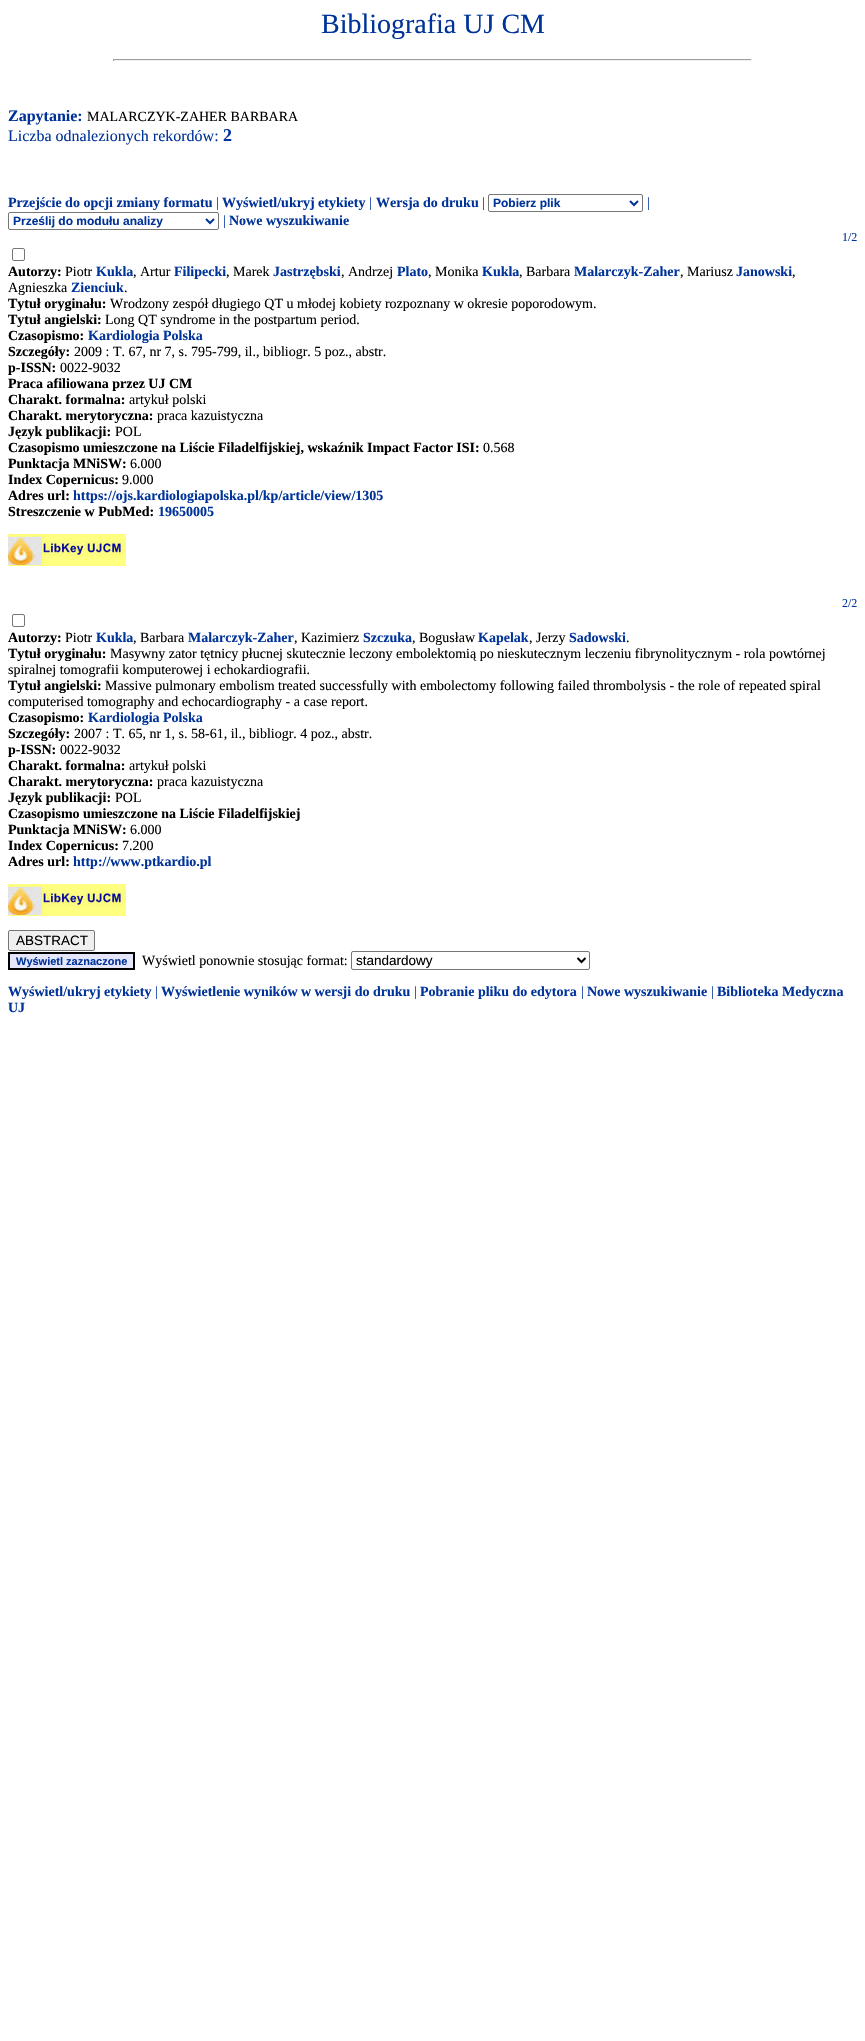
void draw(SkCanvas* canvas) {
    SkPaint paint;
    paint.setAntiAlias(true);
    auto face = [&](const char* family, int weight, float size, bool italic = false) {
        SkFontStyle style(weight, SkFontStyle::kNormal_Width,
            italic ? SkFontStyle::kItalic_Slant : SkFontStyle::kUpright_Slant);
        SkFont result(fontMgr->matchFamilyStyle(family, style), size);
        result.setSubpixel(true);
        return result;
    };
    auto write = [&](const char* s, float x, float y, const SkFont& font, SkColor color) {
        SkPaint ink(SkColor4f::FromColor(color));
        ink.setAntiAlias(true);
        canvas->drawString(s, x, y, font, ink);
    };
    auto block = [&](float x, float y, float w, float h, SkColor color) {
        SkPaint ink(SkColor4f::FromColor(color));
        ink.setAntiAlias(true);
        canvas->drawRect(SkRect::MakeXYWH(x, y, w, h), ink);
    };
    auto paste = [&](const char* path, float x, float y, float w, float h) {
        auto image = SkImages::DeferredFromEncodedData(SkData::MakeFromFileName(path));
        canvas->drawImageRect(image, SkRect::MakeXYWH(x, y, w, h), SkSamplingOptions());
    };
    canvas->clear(SK_ColorWHITE);
    auto kFont1 = face("Liberation Serif", 400, 28);
    write("Bibliografia UJ CM", 321, 33, kFont1, SkColorSetRGB(0, 51, 153));
    block(113, 59, 639, 1, SkColorSetRGB(159, 159, 159));
    block(751, 59, 1, 2, SkColorSetRGB(238, 238, 238));
    block(113, 60, 639, 1, SkColorSetRGB(238, 238, 238));
    block(113, 59, 1, 2, SkColorSetRGB(159, 159, 159));
    auto kFont2 = face("Liberation Serif", 700, 16);
    write("Zapytanie:", 8, 121, kFont2, SkColorSetRGB(0, 51, 153));
    auto kFont3 = face("Liberation Serif", 400, 14);
    write("MALARCZYK-ZAHER BARBARA", 87, 121, kFont3, SK_ColorBLACK);
    auto kFont4 = face("Liberation Serif", 400, 16);
    write("Liczba odnalezionych rekordów:", 8, 141, kFont4, SkColorSetRGB(0, 51, 153));
    auto kFont5 = face("Liberation Serif", 700, 18);
    write("2", 223, 141, kFont5, SkColorSetRGB(0, 51, 153));
    auto kFont6 = face("Liberation Serif", 700, 14);
    write("Przejście do opcji zmiany formatu", 8, 207, kFont6, SkColorSetRGB(0, 51, 153));
    write("|", 216, 207, kFont3, SkColorSetRGB(0, 51, 153));
    write("Wyświetl/ukryj etykiety", 222, 207, kFont6, SkColorSetRGB(0, 51, 153));
    write("|", 369, 207, kFont3, SkColorSetRGB(0, 51, 153));
    write("Wersja do druku", 376, 207, kFont6, SkColorSetRGB(0, 51, 153));
    write("|", 482, 207, kFont3, SkColorSetRGB(0, 51, 153));
    paint.setStyle(SkPaint::kStroke_Style);
    paint.setStrokeWidth(1);
    paint.setColor(SkColorSetRGB(118, 118, 118));
    canvas->drawRoundRect(SkRect::MakeXYWH(488.5f, 194.5f, 154, 17), 1.5f, 1.5f, paint);
    paint.setStrokeWidth(2);
    paint.setColor(SkColorSetRGB(0, 51, 153));
    canvas->drawPath(SkPathBuilder().moveTo(630, 201).lineTo(634, 205).lineTo(638, 201).detach(), paint);
    auto kFont7 = face("Liberation Sans", 700, 12);
    write("Pobierz plik", 493, 207, kFont7, SkColorSetRGB(0, 51, 153));
    write("|", 647, 207, kFont3, SkColorSetRGB(0, 51, 153));
    paint.setStrokeWidth(1);
    paint.setColor(SkColorSetRGB(118, 118, 118));
    canvas->drawRoundRect(SkRect::MakeXYWH(8.5f, 212.5f, 210, 17), 1.5f, 1.5f, paint);
    paint.setStrokeWidth(2);
    paint.setColor(SkColorSetRGB(0, 51, 153));
    canvas->drawPath(SkPathBuilder().moveTo(206, 219).lineTo(210, 223).lineTo(214, 219).detach(), paint);
    write("Prześlij do modułu analizy", 13, 225, kFont7, SkColorSetRGB(0, 51, 153));
    write("|", 223, 225, kFont3, SkColorSetRGB(0, 51, 153));
    write("Nowe wyszukiwanie", 229, 225, kFont6, SkColorSetRGB(0, 51, 153));
    auto kFont8 = face("Liberation Serif", 400, 12);
    write("1/2", 842, 241, kFont8, SkColorSetRGB(0, 51, 153));
    paint.setStrokeWidth(1);
    paint.setColor(SkColorSetRGB(118, 118, 118));
    canvas->drawRoundRect(SkRect::MakeXYWH(12.5f, 248.5f, 12, 12), 1.5f, 1.5f, paint);
    write("Autorzy:", 8, 276, kFont6, SK_ColorBLACK);
    write("Piotr", 65, 276, kFont3, SK_ColorBLACK);
    write("Kukla", 96, 276, kFont6, SkColorSetRGB(0, 51, 153));
    write(", Artur", 133, 276, kFont3, SK_ColorBLACK);
    write("Filipecki", 174, 276, kFont6, SkColorSetRGB(0, 51, 153));
    write(", Marek", 226, 276, kFont3, SK_ColorBLACK);
    write("Jastrzębski", 273, 276, kFont6, SkColorSetRGB(0, 51, 153));
    write(", Andrzej", 341, 276, kFont3, SK_ColorBLACK);
    write("Plato", 397, 276, kFont6, SkColorSetRGB(0, 51, 153));
    write(", Monika", 428, 276, kFont3, SK_ColorBLACK);
    write("Kukla", 482, 276, kFont6, SkColorSetRGB(0, 51, 153));
    write(", Barbara", 519, 276, kFont3, SK_ColorBLACK);
    write("Malarczyk-Zaher", 574, 276, kFont6, SkColorSetRGB(0, 51, 153));
    write(", Mariusz", 680, 276, kFont3, SK_ColorBLACK);
    write("Janowski", 736, 276, kFont6, SkColorSetRGB(0, 51, 153));
    write(",", 792, 276, kFont3, SK_ColorBLACK);
    write("Agnieszka", 8, 292, kFont3, SK_ColorBLACK);
    write("Zienciuk", 71, 292, kFont6, SkColorSetRGB(0, 51, 153));
    write(".", 124, 292, kFont3, SK_ColorBLACK);
    write("Tytuł oryginału:", 8, 308, kFont6, SK_ColorBLACK);
    write("Wrodzony zespół długiego QT u młodej kobiety rozpoznany w okresie poporodowym.", 110, 308, kFont3, SK_ColorBLACK);
    write("Tytuł angielski:", 8, 324, kFont6, SK_ColorBLACK);
    write("Long QT syndrome in the postpartum period.", 105, 324, kFont3, SK_ColorBLACK);
    write("Czasopismo:", 8, 340, kFont6, SK_ColorBLACK);
    write("Kardiologia Polska", 88, 340, kFont6, SkColorSetRGB(0, 51, 153));
    write("Szczegóły:", 8, 356, kFont6, SK_ColorBLACK);
    write("2009 : T. 67, nr 7, s. 795-799, il., bibliogr. 5 poz., abstr.", 74, 356, kFont3, SK_ColorBLACK);
    write("p-ISSN:", 8, 372, kFont6, SK_ColorBLACK);
    write("0022-9032", 60, 372, kFont3, SK_ColorBLACK);
    write("Praca afiliowana przez UJ CM", 8, 388, kFont6, SK_ColorBLACK);
    write("Charakt. formalna:", 8, 404, kFont6, SK_ColorBLACK);
    write("artykuł polski", 129, 404, kFont3, SK_ColorBLACK);
    write("Charakt. merytoryczna:", 8, 420, kFont6, SK_ColorBLACK);
    write("praca kazuistyczna", 157, 420, kFont3, SK_ColorBLACK);
    write("Język publikacji:", 8, 436, kFont6, SK_ColorBLACK);
    write("POL", 115, 436, kFont3, SK_ColorBLACK);
    write("Czasopismo umieszczone na Liście Filadelfijskiej, wskaźnik Impact Factor ISI:", 8, 452, kFont6, SK_ColorBLACK);
    write("0.568", 483, 452, kFont3, SK_ColorBLACK);
    write("Punktacja MNiSW:", 8, 468, kFont6, SK_ColorBLACK);
    write("6.000", 130, 468, kFont3, SK_ColorBLACK);
    write("Index Copernicus:", 8, 484, kFont6, SK_ColorBLACK);
    write("9.000", 122, 484, kFont3, SK_ColorBLACK);
    write("Adres url:", 8, 500, kFont6, SK_ColorBLACK);
    write("https://ojs.kardiologiapolska.pl/kp/article/view/1305", 73, 500, kFont6, SkColorSetRGB(0, 51, 153));
    write("Streszczenie w PubMed:", 8, 516, kFont6, SK_ColorBLACK);
    write("19650005", 158, 516, kFont6, SkColorSetRGB(0, 51, 153));
    paste("pic1.png", 8, 534, 118, 32);
    write("2/2", 842, 607, kFont8, SkColorSetRGB(0, 51, 153));
    canvas->drawRoundRect(SkRect::MakeXYWH(12.5f, 614.5f, 12, 12), 1.5f, 1.5f, paint);
    write("Autorzy:", 8, 642, kFont6, SK_ColorBLACK);
    write("Piotr", 65, 642, kFont3, SK_ColorBLACK);
    write("Kukla", 96, 642, kFont6, SkColorSetRGB(0, 51, 153));
    write(", Barbara", 133, 642, kFont3, SK_ColorBLACK);
    write("Malarczyk-Zaher", 188, 642, kFont6, SkColorSetRGB(0, 51, 153));
    write(", Kazimierz", 294, 642, kFont3, SK_ColorBLACK);
    write("Szczuka", 363, 642, kFont6, SkColorSetRGB(0, 51, 153));
    write(", Bogusław", 412, 642, kFont3, SK_ColorBLACK);
    write("Kapelak", 478, 642, kFont6, SkColorSetRGB(0, 51, 153));
    write(", Jerzy", 529, 642, kFont3, SK_ColorBLACK);
    write("Sadowski", 569, 642, kFont6, SkColorSetRGB(0, 51, 153));
    write(".", 626, 642, kFont3, SK_ColorBLACK);
    write("Tytuł oryginału:", 8, 658, kFont6, SK_ColorBLACK);
    write("Masywny zator tętnicy płucnej skutecznie leczony embolektomią po nieskutecznym leczeniu fibrynolitycznym - rola powtórnej", 110, 658, kFont3, SK_ColorBLACK);
    write("spiralnej tomografii komputerowej i echokardiografii.", 8, 674, kFont3, SK_ColorBLACK);
    write("Tytuł angielski:", 8, 690, kFont6, SK_ColorBLACK);
    write("Massive pulmonary embolism treated successfully with embolectomy following failed thrombolysis - the role of repeated spiral", 105, 690, kFont3, SK_ColorBLACK);
    write("computerised tomography and echocardiography - a case report.", 8, 706, kFont3, SK_ColorBLACK);
    write("Czasopismo:", 8, 722, kFont6, SK_ColorBLACK);
    write("Kardiologia Polska", 88, 722, kFont6, SkColorSetRGB(0, 51, 153));
    write("Szczegóły:", 8, 738, kFont6, SK_ColorBLACK);
    write("2007 : T. 65, nr 1, s. 58-61, il., bibliogr. 4 poz., abstr.", 74, 738, kFont3, SK_ColorBLACK);
    write("p-ISSN:", 8, 754, kFont6, SK_ColorBLACK);
    write("0022-9032", 60, 754, kFont3, SK_ColorBLACK);
    write("Charakt. formalna:", 8, 770, kFont6, SK_ColorBLACK);
    write("artykuł polski", 129, 770, kFont3, SK_ColorBLACK);
    write("Charakt. merytoryczna:", 8, 786, kFont6, SK_ColorBLACK);
    write("praca kazuistyczna", 157, 786, kFont3, SK_ColorBLACK);
    write("Język publikacji:", 8, 802, kFont6, SK_ColorBLACK);
    write("POL", 115, 802, kFont3, SK_ColorBLACK);
    write("Czasopismo umieszczone na Liście Filadelfijskiej", 8, 818, kFont6, SK_ColorBLACK);
    write("Punktacja MNiSW:", 8, 834, kFont6, SK_ColorBLACK);
    write("6.000", 130, 834, kFont3, SK_ColorBLACK);
    write("Index Copernicus:", 8, 850, kFont6, SK_ColorBLACK);
    write("7.200", 122, 850, kFont3, SK_ColorBLACK);
    write("Adres url:", 8, 866, kFont6, SK_ColorBLACK);
    write("http://www.ptkardio.pl", 73, 866, kFont6, SkColorSetRGB(0, 51, 153));
    paste("pic1.png", 8, 884, 118, 32);
    paint.setStyle(SkPaint::kFill_Style);
    paint.setColor(SkColorSetRGB(239, 239, 239));
    canvas->drawRoundRect(SkRect::MakeXYWH(8.5f, 930.5f, 86, 20), 1.5f, 1.5f, paint);
    paint.setStyle(SkPaint::kStroke_Style);
    paint.setColor(SkColorSetRGB(118, 118, 118));
    canvas->drawRoundRect(SkRect::MakeXYWH(8.5f, 930.5f, 86, 20), 1.5f, 1.5f, paint);
    auto kFont9 = face("Liberation Sans", 400, 13.5f);
    write("ABSTRACT", 16, 945, kFont9, SK_ColorBLACK);
    paint.setStyle(SkPaint::kFill_Style);
    paint.setColor(SkColorSetRGB(230, 230, 250));
    canvas->drawRect(SkRect::MakeXYWH(9, 953, 125, 16), paint);
    paint.setStyle(SkPaint::kStroke_Style);
    paint.setStrokeWidth(2);
    paint.setColor(SK_ColorBLACK);
    canvas->drawRect(SkRect::MakeXYWH(9, 953, 125, 16), paint);
    auto kFont10 = face("Liberation Sans", 700, 11);
    write("Wyświetl zaznaczone", 16, 965, kFont10, SkColorSetRGB(0, 51, 153));
    write("Wyświetl ponownie stosując format:", 142, 965, kFont3, SK_ColorBLACK);
    paint.setStrokeWidth(1);
    paint.setColor(SkColorSetRGB(118, 118, 118));
    canvas->drawRoundRect(SkRect::MakeXYWH(351.5f, 951.5f, 238, 18), 1.5f, 1.5f, paint);
    paint.setStrokeWidth(2);
    paint.setColor(SK_ColorBLACK);
    canvas->drawPath(SkPathBuilder().moveTo(577.5f, 958).lineTo(581.5f, 962).lineTo(585.5f, 958).detach(), paint);
    write("standardowy", 356, 965, kFont9, SK_ColorBLACK);
    write("Wyświetl/ukryj etykiety", 8, 996, kFont6, SkColorSetRGB(0, 51, 153));
    write("|", 155, 996, kFont3, SkColorSetRGB(0, 51, 153));
    write("Wyświetlenie wyników w wersji do druku", 161, 996, kFont6, SkColorSetRGB(0, 51, 153));
    write("|", 414, 996, kFont3, SkColorSetRGB(0, 51, 153));
    write("Pobranie pliku do edytora", 420, 996, kFont6, SkColorSetRGB(0, 51, 153));
    write("|", 581, 996, kFont3, SkColorSetRGB(0, 51, 153));
    write("Nowe wyszukiwanie", 587, 996, kFont6, SkColorSetRGB(0, 51, 153));
    write("|", 711, 996, kFont3, SkColorSetRGB(0, 51, 153));
    write("Biblioteka Medyczna", 717, 996, kFont6, SkColorSetRGB(0, 51, 153));
    write("UJ", 8, 1012, kFont6, SkColorSetRGB(0, 51, 153));
}
